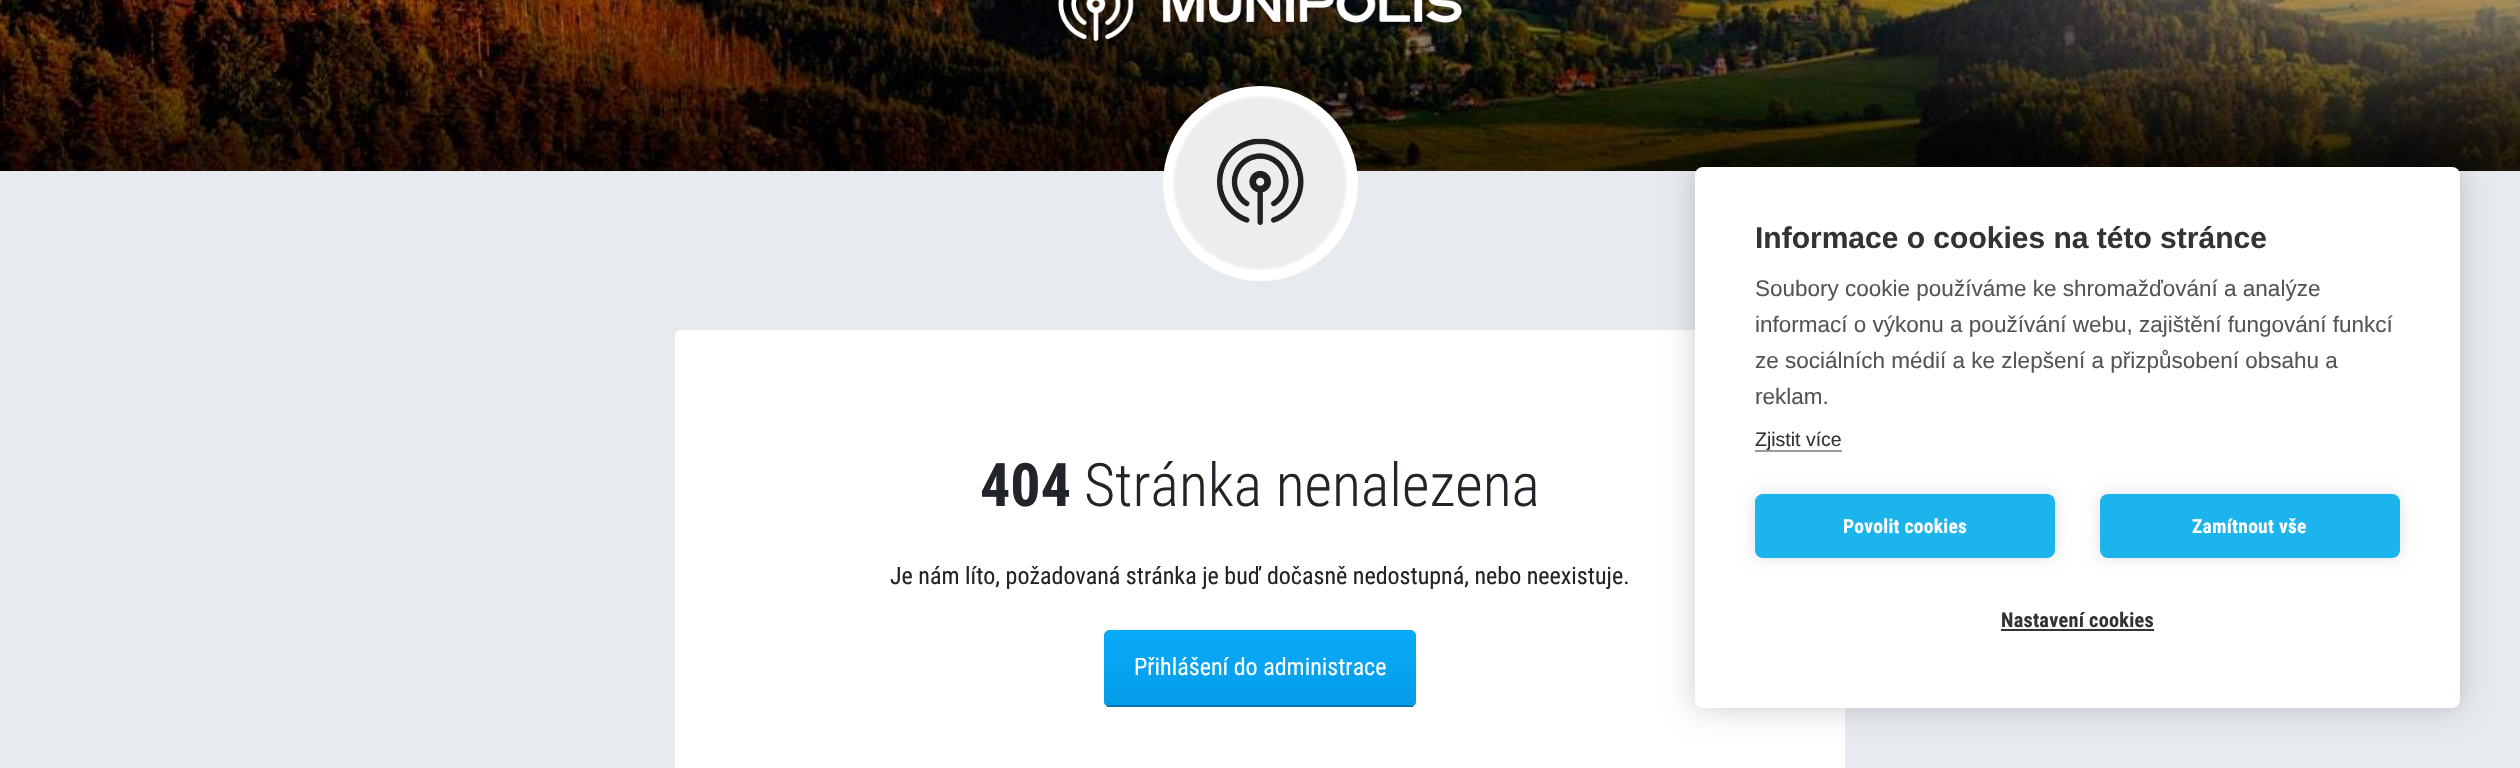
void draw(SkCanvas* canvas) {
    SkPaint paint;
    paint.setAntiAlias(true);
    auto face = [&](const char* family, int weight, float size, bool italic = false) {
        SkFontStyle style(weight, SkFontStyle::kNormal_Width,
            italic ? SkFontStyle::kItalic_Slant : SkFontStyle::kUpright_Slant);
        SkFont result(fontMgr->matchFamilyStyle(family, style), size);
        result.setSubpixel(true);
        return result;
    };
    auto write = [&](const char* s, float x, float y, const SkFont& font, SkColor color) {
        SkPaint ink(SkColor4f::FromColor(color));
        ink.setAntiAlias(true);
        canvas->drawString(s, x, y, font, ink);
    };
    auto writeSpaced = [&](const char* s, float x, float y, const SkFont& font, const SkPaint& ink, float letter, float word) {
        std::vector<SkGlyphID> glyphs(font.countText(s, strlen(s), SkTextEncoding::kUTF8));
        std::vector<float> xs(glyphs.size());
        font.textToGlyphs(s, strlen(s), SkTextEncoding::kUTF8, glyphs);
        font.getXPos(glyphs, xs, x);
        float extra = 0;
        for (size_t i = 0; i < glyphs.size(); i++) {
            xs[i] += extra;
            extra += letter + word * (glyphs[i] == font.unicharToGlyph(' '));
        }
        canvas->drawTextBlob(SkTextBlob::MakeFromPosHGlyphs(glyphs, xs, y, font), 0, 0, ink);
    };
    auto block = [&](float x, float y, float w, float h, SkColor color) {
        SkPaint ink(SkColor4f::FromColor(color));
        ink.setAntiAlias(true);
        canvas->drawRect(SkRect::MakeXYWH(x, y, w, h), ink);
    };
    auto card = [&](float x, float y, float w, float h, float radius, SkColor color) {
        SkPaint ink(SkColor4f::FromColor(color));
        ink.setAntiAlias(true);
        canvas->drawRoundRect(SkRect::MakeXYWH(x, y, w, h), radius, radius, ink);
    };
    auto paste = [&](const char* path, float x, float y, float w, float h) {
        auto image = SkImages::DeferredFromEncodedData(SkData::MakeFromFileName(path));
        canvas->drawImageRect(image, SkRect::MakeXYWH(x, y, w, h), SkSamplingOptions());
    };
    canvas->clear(SkColorSetRGB(231, 234, 239));
    paste("pic1.png", 0, 0, 2520, 171);
    paste("pic2.png", 1058, 0, 404, 42);
    paint.setColor(SK_ColorWHITE);
    canvas->drawCircle(1260.5f, 183.5f, 97.5f, paint);
    paint.setColor(SkColorSetRGB(237, 237, 237));
    canvas->drawCircle(1260, 183, 86, paint);
    paint.setStyle(SkPaint::kStroke_Style);
    paint.setStrokeWidth(2);
    paint.setColor(SkColorSetRGB(243, 243, 243));
    canvas->drawCircle(1260, 183, 86, paint);
    paste("pic3.png", 1217, 138, 87, 87);
    card(675, 330, 1170, 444, 6, SK_ColorWHITE);
    auto kFont1 = face("Roboto Condensed", 700, 60);
    write("404", 980, 506, kFont1, SkColorSetRGB(33, 37, 41));
    auto kFont2 = face("Roboto Condensed", 300, 60);
    write("Stránka nenalezena", 1084, 506, kFont2, SkColorSetRGB(33, 37, 41));
    auto kFont3 = face("Roboto Condensed", 400, 24);
    write("Je nám líto, požadovaná stránka je buď dočasně nedostupná, nebo neexistuje.", 890, 584, kFont3, SkColorSetRGB(33, 37, 41));
    card(1104, 630, 312, 77, 6, SkColorSetRGB(5, 157, 232));
    canvas->save();
    canvas->clipPath(SkPathBuilder().moveTo(1110, 630).lineTo(1410, 630).cubicTo(1413.5f, 630, 1416, 632.5f, 1416, 636).lineTo(1416, 701).cubicTo(1416, 704.5f, 1413.5f, 707, 1410, 707).lineTo(1110, 707).cubicTo(1106.5f, 707, 1104, 704.5f, 1104, 701).lineTo(1104, 636).cubicTo(1104, 632.5f, 1106.5f, 630, 1110, 630).close().detach(), true);
    paint.setStyle(SkPaint::kFill_Style);
    {
        const SkColor colors[] = {SkColorSetRGB(8, 170, 250), SkColorSetRGB(5, 157, 232)};
        const float stops[] = {0, 1};
        const SkPoint ends[] = {{1260, 630}, {1260, 705}};
        paint.setShader(SkGradientShader::MakeLinear(ends, colors, stops, 2, SkTileMode::kClamp));
        paint.setAlpha(255);
    }
    canvas->drawPath(SkPathBuilder().moveTo(1110, 630).lineTo(1410, 630).cubicTo(1413.5f, 630, 1416, 632.5f, 1416, 636).lineTo(1416, 705).lineTo(1104, 705).lineTo(1104, 636).cubicTo(1104, 632.5f, 1106.5f, 630, 1110, 630).close().detach(), paint);
    canvas->restore();
    block(1107, 705, 306, 2, SkColorSetRGB(3, 115, 171));
    write("Přihlášení do administrace", 1134, 675, kFont3, SK_ColorWHITE);
    paint.setShader(nullptr);
    paint.setColor(SkColorSetARGB(51, 0, 0, 0));
    paint.setMaskFilter(SkMaskFilter::MakeBlur(kNormal_SkBlurStyle, 15));
    canvas->drawRoundRect(SkRect::MakeXYWH(1695, 167, 765, 541), 8, 8, paint);
    paint.setMaskFilter(nullptr);
    card(1695, 167, 765, 541, 8, SK_ColorWHITE);
    auto kFont4 = face("Liberation Sans", 700, 30);
    write("Informace o cookies na této stránce", 1755, 248, kFont4, SkColorSetRGB(51, 51, 51));
    auto kFont5 = face("Liberation Sans", 400, 22.5f);
    write("Soubory cookie používáme ke shromažďování a analýze", 1755, 296, kFont5, SkColorSetRGB(85, 85, 85));
    write("informací o výkonu a používání webu, zajištění fungování funkcí", 1755, 332, kFont5, SkColorSetRGB(85, 85, 85));
    write("ze sociálních médií a ke zlepšení a přizpůsobení obsahu a", 1755, 368, kFont5, SkColorSetRGB(85, 85, 85));
    write("reklam.", 1755, 404, kFont5, SkColorSetRGB(85, 85, 85));
    block(1755, 450, 87, 2, SkColorSetRGB(153, 153, 153));
    auto kFont6 = face("Liberation Sans", 400, 19.5f);
    write("Zjistit více", 1755, 446, kFont6, SkColorSetRGB(51, 51, 51));
    paint.setColor(SkColorSetARGB(31, 0, 0, 0));
    paint.setMaskFilter(SkMaskFilter::MakeBlur(kNormal_SkBlurStyle, 7.5f));
    canvas->drawRoundRect(SkRect::MakeXYWH(1755, 494, 300, 64), 8, 8, paint);
    paint.setMaskFilter(nullptr);
    card(1755, 494, 300, 64, 8, SkColorSetRGB(27, 180, 236));
    auto kFont7 = face("Roboto Condensed", 700, 19.5f);
    paint.setColor(SK_ColorWHITE);
    writeSpaced("Povolit cookies", 1843, 533, kFont7, paint, 0.25f, 0);
    paint.setColor(SkColorSetARGB(31, 0, 0, 0));
    paint.setMaskFilter(SkMaskFilter::MakeBlur(kNormal_SkBlurStyle, 7.5f));
    canvas->drawRoundRect(SkRect::MakeXYWH(2100, 494, 300, 64), 8, 8, paint);
    paint.setMaskFilter(nullptr);
    card(2100, 494, 300, 64, 8, SkColorSetRGB(27, 180, 236));
    paint.setColor(SK_ColorWHITE);
    writeSpaced("Zamítnout vše", 2192, 533, kFont7, paint, 0.25f, 0);
    auto kFont8 = face("Roboto Condensed", 700, 20.25f);
    paint.setColor(SkColorSetRGB(51, 51, 51));
    writeSpaced("Nastavení cookies", 2001, 627, kFont8, paint, 0.25f, 0);
    block(2001, 629, 153, 2, SkColorSetRGB(51, 51, 51));
}
